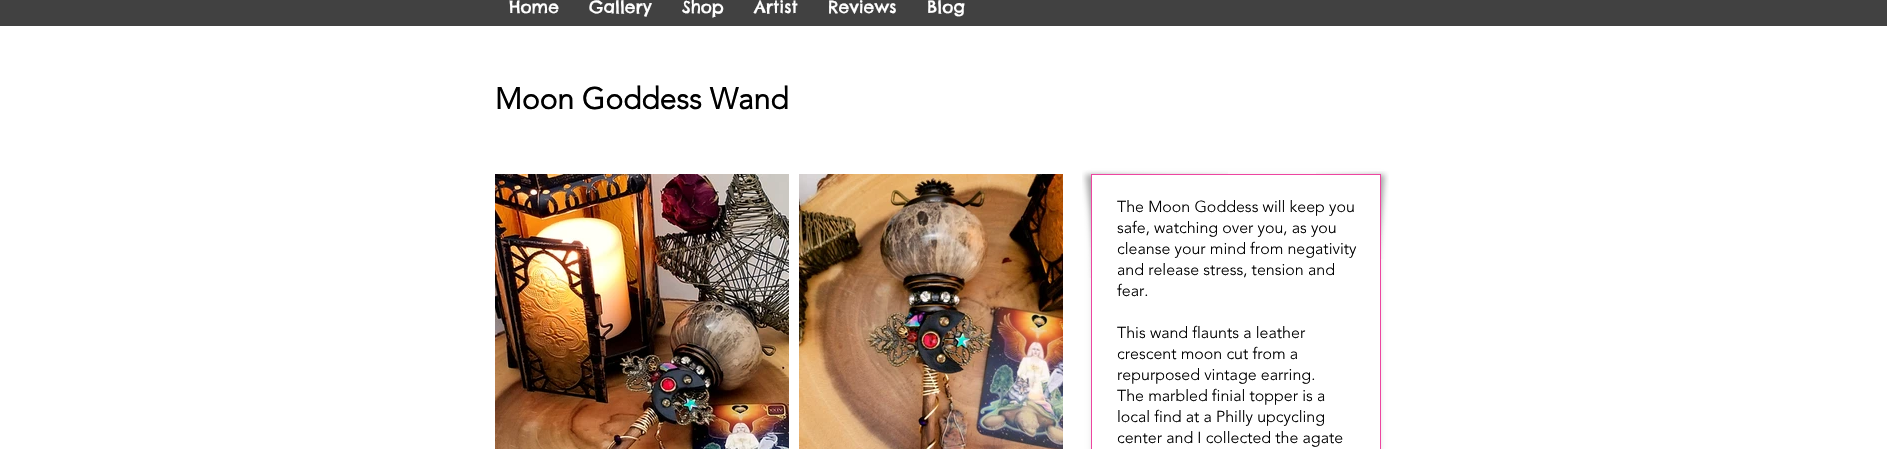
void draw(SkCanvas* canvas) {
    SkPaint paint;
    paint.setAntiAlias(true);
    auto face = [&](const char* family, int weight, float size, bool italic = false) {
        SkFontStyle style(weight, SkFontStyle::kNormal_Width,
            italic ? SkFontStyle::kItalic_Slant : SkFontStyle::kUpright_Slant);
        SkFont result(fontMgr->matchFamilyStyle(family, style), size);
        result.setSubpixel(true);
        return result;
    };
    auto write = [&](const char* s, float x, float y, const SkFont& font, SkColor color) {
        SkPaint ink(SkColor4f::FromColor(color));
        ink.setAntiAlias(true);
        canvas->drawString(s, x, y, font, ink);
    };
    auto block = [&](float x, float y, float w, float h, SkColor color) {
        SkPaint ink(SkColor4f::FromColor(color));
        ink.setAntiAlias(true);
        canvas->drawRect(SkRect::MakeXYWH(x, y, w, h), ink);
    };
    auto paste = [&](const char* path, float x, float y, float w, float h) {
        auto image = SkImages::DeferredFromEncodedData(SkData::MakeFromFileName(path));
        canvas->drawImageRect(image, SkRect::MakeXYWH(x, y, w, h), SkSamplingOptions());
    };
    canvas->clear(SK_ColorWHITE);
    block(0, 0, 1887, 26, SkColorSetRGB(65, 65, 65));
    auto kFont1 = face("Chelsea Market", 400, 17);
    write("Home", 509, 13, kFont1, SK_ColorWHITE);
    write("Gallery", 589, 13, kFont1, SK_ColorWHITE);
    write("Shop", 682, 13, kFont1, SK_ColorWHITE);
    write("Artist", 754, 13, kFont1, SK_ColorWHITE);
    write("Reviews", 828, 13, kFont1, SK_ColorWHITE);
    write("Blog", 927, 13, kFont1, SK_ColorWHITE);
    auto kFont2 = face("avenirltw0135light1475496", 700, 30);
    write("Moon Goddess Wand", 495, 109, kFont2, SK_ColorBLACK);
    paste("pic1.png", 495, 174, 294, 275);
    paste("pic2.png", 799, 174, 264, 275);
    paste("pic3.png", 1082, 170, 146, 108);
    paste("pic4.png", 1316, 171, 73, 88);
    canvas->save();
    canvas->clipPath(SkPathBuilder(SkPathFillType::kEvenOdd).moveTo(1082, 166).lineTo(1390, 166).lineTo(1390, 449).lineTo(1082, 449).close().moveTo(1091, 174).lineTo(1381, 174).lineTo(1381, 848).lineTo(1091, 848).close().detach(), true);
    paint.setColor(SkColorSetARGB(26, 0, 0, 0));
    paint.setMaskFilter(SkMaskFilter::MakeBlur(kNormal_SkBlurStyle, 2.5f));
    canvas->drawRect(SkRect::MakeXYWH(1091, 175, 290, 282), paint);
    paint.setMaskFilter(nullptr);
    canvas->restore();
    paint.setStyle(SkPaint::kStroke_Style);
    paint.setStrokeWidth(1);
    paint.setColor(SkColorSetRGB(237, 69, 160));
    canvas->drawRect(SkRect::MakeXYWH(1091.5f, 174.5f, 289, 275), paint);
    auto kFont3 = face("avenirltw0135light1475496", 300, 16);
    write("The Moon Goddess will keep you", 1117, 212, kFont3, SK_ColorBLACK);
    write("safe, watching over you, as you", 1117, 233, kFont3, SK_ColorBLACK);
    write("cleanse your mind from negativity", 1117, 254, kFont3, SK_ColorBLACK);
    write("and release stress, tension and", 1117, 275, kFont3, SK_ColorBLACK);
    write("fear.", 1117, 296, kFont3, SK_ColorBLACK);
    write("This wand flaunts a leather", 1117, 338, kFont3, SK_ColorBLACK);
    write("crescent moon cut from a", 1117, 359, kFont3, SK_ColorBLACK);
    write("repurposed vintage earring.", 1117, 380, kFont3, SK_ColorBLACK);
    write("The marbled finial topper is a", 1117, 401, kFont3, SK_ColorBLACK);
    write("local find at a Philly upcycling", 1117, 422, kFont3, SK_ColorBLACK);
    write("center and I collected the agate", 1117, 443, kFont3, SK_ColorBLACK);
}
